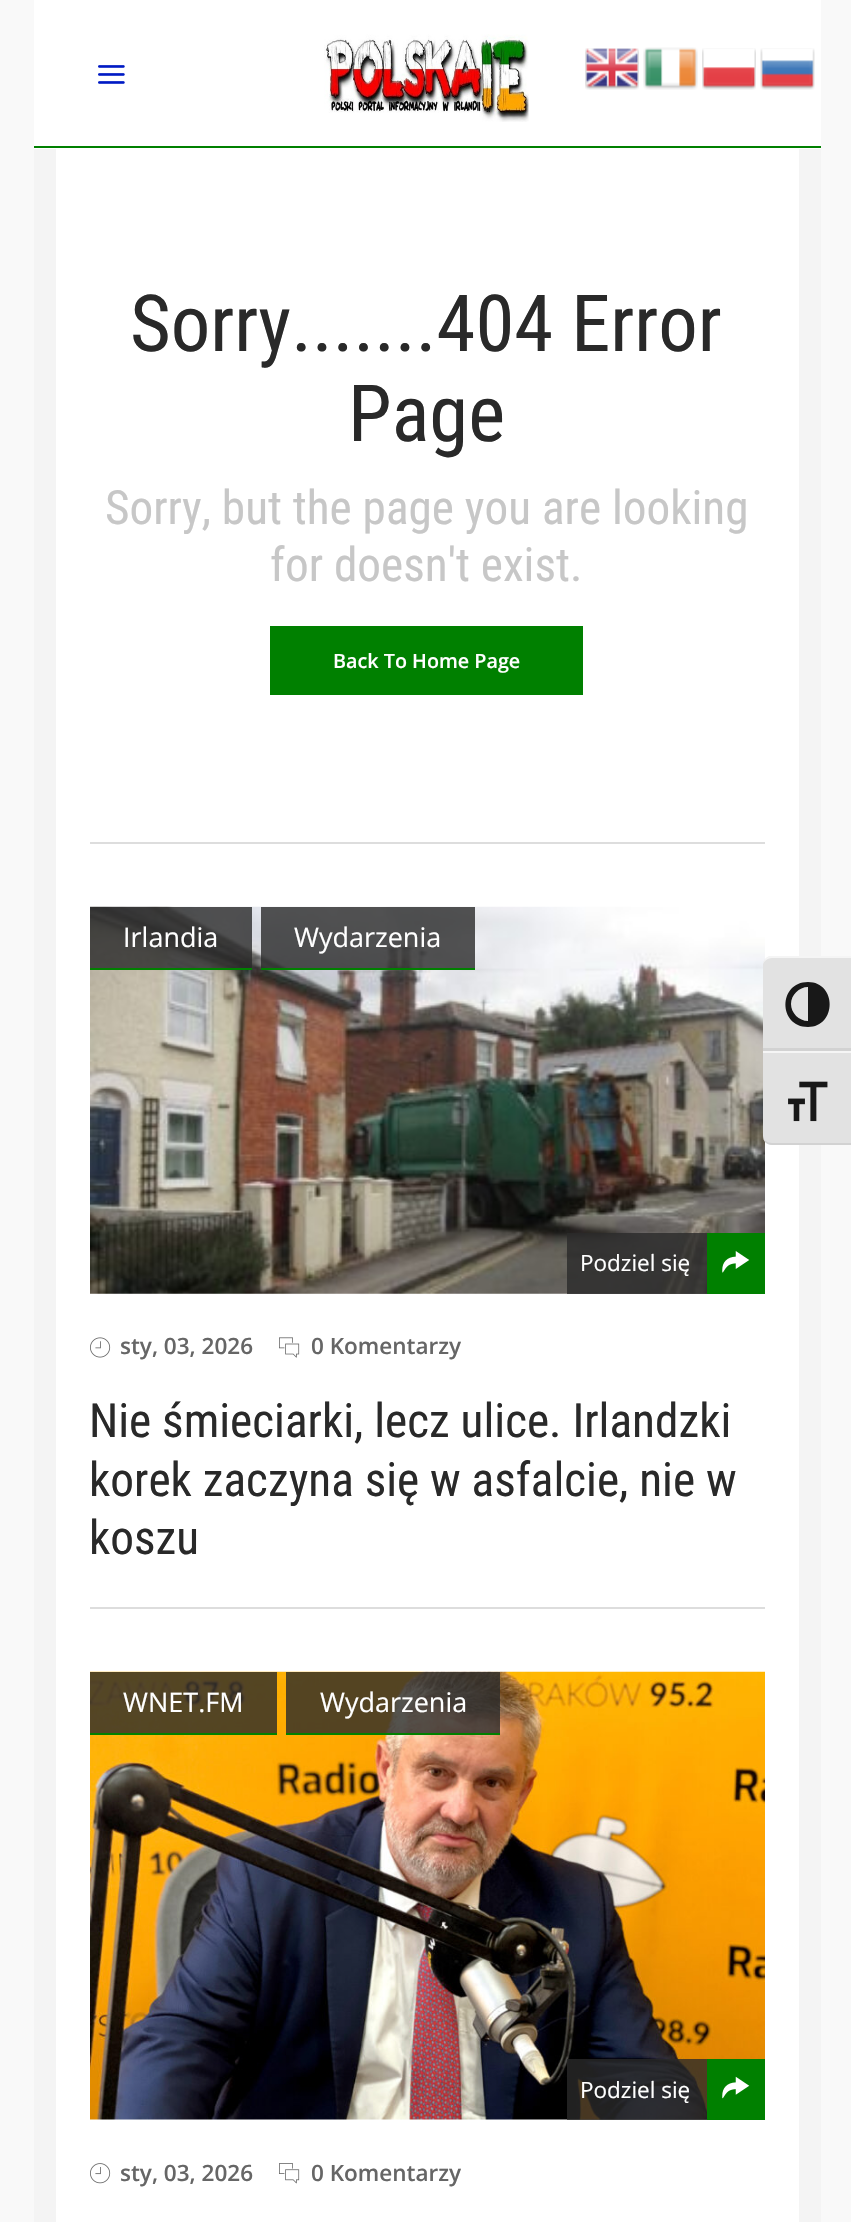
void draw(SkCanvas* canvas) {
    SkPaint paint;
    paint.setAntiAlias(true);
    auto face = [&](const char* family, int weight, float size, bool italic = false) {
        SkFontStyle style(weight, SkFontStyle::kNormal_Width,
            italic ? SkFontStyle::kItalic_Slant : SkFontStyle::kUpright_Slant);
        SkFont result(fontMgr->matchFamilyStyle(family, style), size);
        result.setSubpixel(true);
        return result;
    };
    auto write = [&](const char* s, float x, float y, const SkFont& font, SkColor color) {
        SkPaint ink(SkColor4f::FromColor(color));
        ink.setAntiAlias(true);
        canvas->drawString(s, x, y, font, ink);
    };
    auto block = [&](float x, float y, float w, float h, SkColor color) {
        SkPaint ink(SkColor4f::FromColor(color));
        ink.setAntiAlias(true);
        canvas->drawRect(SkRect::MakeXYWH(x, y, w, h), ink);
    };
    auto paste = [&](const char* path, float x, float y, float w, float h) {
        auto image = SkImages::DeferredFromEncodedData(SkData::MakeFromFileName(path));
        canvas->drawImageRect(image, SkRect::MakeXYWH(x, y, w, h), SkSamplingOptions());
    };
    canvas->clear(SkColorSetRGB(249, 249, 249));
    block(34, 0, 787, 149, SK_ColorWHITE);
    paste("pic1.png", 585, 48, 54, 42);
    paste("pic2.png", 643, 47, 55, 43);
    paste("pic3.png", 702, 48, 54, 42);
    paste("pic4.png", 760, 48, 55, 42);
    block(34, 149, 787, 2073, SkColorSetRGB(244, 244, 244));
    block(34, 146, 787, 2, SkColorSetRGB(0, 128, 0));
    paste("pic5.png", 98, 65, 27, 19);
    paste("pic6.png", 324, 34, 205, 88);
    block(56, 149, 743, 2073, SK_ColorWHITE);
    auto kFont1 = face("Roboto Condensed", 400, 78.75f);
    write("Sorry.......404 Error", 130, 351, kFont1, SkColorSetRGB(41, 41, 41));
    write("Page", 348, 441, kFont1, SkColorSetRGB(41, 41, 41));
    auto kFont2 = face("Roboto Condensed", 400, 47.25f);
    write("Sorry, but the page you are looking", 105, 524, kFont2, SkColorSetRGB(199, 199, 199));
    write("for doesn't exist.", 270, 581, kFont2, SkColorSetRGB(199, 199, 199));
    block(270, 626, 313, 69, SkColorSetRGB(0, 128, 0));
    auto kFont3 = face("Open Sans", 600, 19.75f);
    write("Back To Home Page", 333, 668, kFont3, SK_ColorWHITE);
    block(90, 842, 675, 2, SkColorSetRGB(221, 221, 221));
    paste("pic7.png", 90, 906, 675, 388);
    block(90, 907, 162, 61, SkColorSetARGB(204, 41, 41, 41));
    block(90, 968, 162, 2, SkColorSetRGB(0, 128, 0));
    auto kFont4 = face("Open Sans", 400, 27);
    write("Irlandia", 123, 947, kFont4, SK_ColorWHITE);
    block(261, 907, 214, 61, SkColorSetARGB(204, 41, 41, 41));
    block(261, 968, 214, 2, SkColorSetRGB(0, 128, 0));
    write("Wydarzenia", 294, 947, kFont4, SK_ColorWHITE);
    block(567, 1233, 140, 61, SkColorSetARGB(204, 41, 41, 41));
    auto kFont5 = face("Open Sans", 400, 22.5f);
    write("Podziel się", 580, 1271, kFont5, SK_ColorWHITE);
    block(707, 1233, 58, 61, SkColorSetRGB(0, 128, 0));
    paste("pic8.png", 722, 1251, 28, 22);
    paste("pic9.png", 90, 1337, 21, 21);
    auto kFont6 = face("Open Sans", 600, 22.5f);
    write("sty, 03, 2026", 120, 1354, kFont6, SkColorSetRGB(102, 102, 102));
    paste("pic10.png", 279, 1337, 21, 21);
    write("0 Komentarzy", 311, 1354, kFont6, SkColorSetRGB(102, 102, 102));
    block(90, 1607, 675, 2, SkColorSetRGB(221, 221, 221));
    write("Nie śmieciarki, lecz ulice. Irlandzki", 89, 1437, kFont2, SkColorSetRGB(41, 41, 41));
    write("korek zaczyna się w asfalcie, nie w", 89, 1496, kFont2, SkColorSetRGB(41, 41, 41));
    write("koszu", 89, 1554, kFont2, SkColorSetRGB(41, 41, 41));
    paste("pic11.png", 90, 1671, 675, 449);
    block(90, 1672, 187, 61, SkColorSetARGB(204, 41, 41, 41));
    block(90, 1733, 187, 2, SkColorSetRGB(0, 128, 0));
    write("WNET.FM", 123, 1712, kFont4, SK_ColorWHITE);
    block(286, 1672, 214, 61, SkColorSetARGB(204, 41, 41, 41));
    block(286, 1733, 214, 2, SkColorSetRGB(0, 128, 0));
    write("Wydarzenia", 320, 1712, kFont4, SK_ColorWHITE);
    block(567, 2059, 140, 61, SkColorSetARGB(204, 41, 41, 41));
    write("Podziel się", 580, 2098, kFont5, SK_ColorWHITE);
    block(707, 2059, 58, 61, SkColorSetRGB(0, 128, 0));
    paste("pic12.png", 722, 2076, 28, 23);
    paste("pic13.png", 90, 2163, 21, 21);
    write("sty, 03, 2026", 120, 2181, kFont6, SkColorSetRGB(102, 102, 102));
    paste("pic14.png", 279, 2163, 21, 21);
    write("0 Komentarzy", 311, 2181, kFont6, SkColorSetRGB(102, 102, 102));
    paint.setColor(SkColorSetRGB(226, 226, 226));
    canvas->drawPath(SkPathBuilder().moveTo(772, 956).lineTo(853, 956).lineTo(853, 1051).lineTo(763, 1051).lineTo(763, 965).cubicTo(763, 960, 767, 956, 772, 956).close().detach(), paint);
    paint.setColor(SkColorSetRGB(245, 245, 245));
    canvas->drawPath(SkPathBuilder().moveTo(772, 958).lineTo(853, 958).lineTo(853, 956).lineTo(770, 956).cubicTo(766, 957, 763, 961, 763, 965).cubicTo(763, 962, 767, 958, 772, 958).close().detach(), paint);
    block(763, 1048, 88, 3, SkColorSetRGB(210, 210, 210));
    paint.setColor(SkColorSetRGB(24, 24, 24));
    canvas->drawPath(SkPathBuilder().moveTo(808, 982).cubicTo(778, 982, 778, 1027, 808, 1027).cubicTo(837, 1027, 837, 982, 808, 982).close().moveTo(791, 1004).cubicTo(791, 995, 799, 987, 808, 987).lineTo(808, 1021).cubicTo(799, 1021, 791, 1013, 791, 1004).close().detach(), paint);
    paint.setColor(SkColorSetRGB(226, 226, 226));
    canvas->drawPath(SkPathBuilder().moveTo(763, 1051).lineTo(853, 1051).lineTo(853, 1145).lineTo(772, 1145).cubicTo(767, 1145, 763, 1141, 763, 1136).close().detach(), paint);
    block(763, 1051, 88, 2, SkColorSetRGB(245, 245, 245));
    paint.setColor(SkColorSetRGB(210, 210, 210));
    canvas->drawPath(SkPathBuilder().moveTo(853, 1143).lineTo(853, 1145).lineTo(772, 1145).cubicTo(767, 1145, 763, 1141, 763, 1136).cubicTo(763, 1140, 767, 1143, 772, 1143).close().detach(), paint);
    paste("pic15.png", 788, 1081, 40, 41);
}
